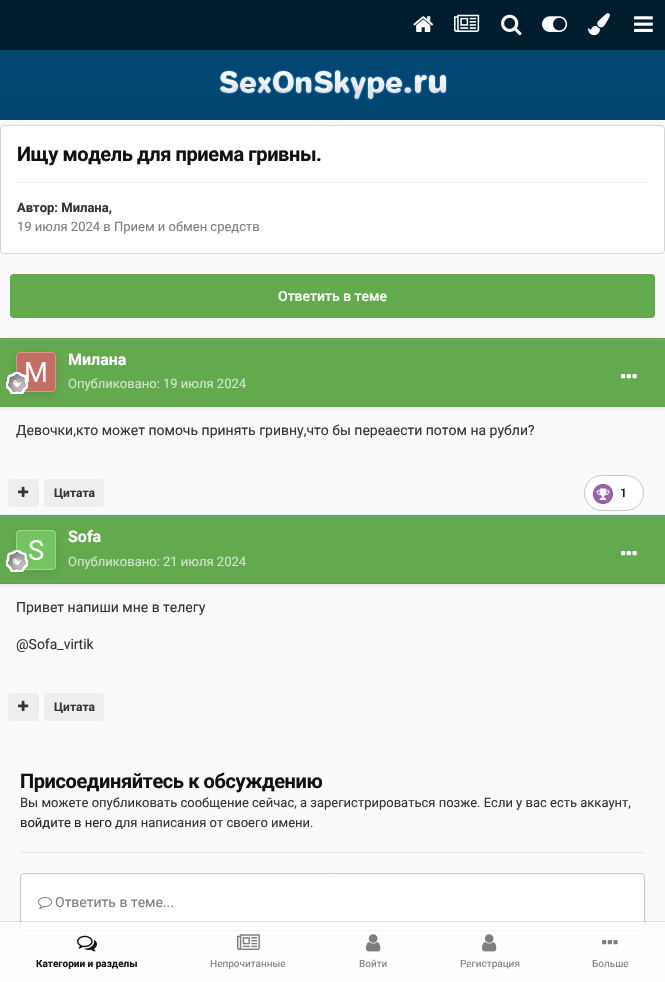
void draw(SkCanvas* canvas) {
    SkPaint paint;
    paint.setAntiAlias(true);
    auto face = [&](const char* family, int weight, float size, bool italic = false) {
        SkFontStyle style(weight, SkFontStyle::kNormal_Width,
            italic ? SkFontStyle::kItalic_Slant : SkFontStyle::kUpright_Slant);
        SkFont result(fontMgr->matchFamilyStyle(family, style), size);
        result.setSubpixel(true);
        return result;
    };
    auto write = [&](const char* s, float x, float y, const SkFont& font, SkColor color) {
        SkPaint ink(SkColor4f::FromColor(color));
        ink.setAntiAlias(true);
        canvas->drawString(s, x, y, font, ink);
    };
    auto writeSpaced = [&](const char* s, float x, float y, const SkFont& font, const SkPaint& ink, float letter, float word) {
        std::vector<SkGlyphID> glyphs(font.countText(s, strlen(s), SkTextEncoding::kUTF8));
        std::vector<float> xs(glyphs.size());
        font.textToGlyphs(s, strlen(s), SkTextEncoding::kUTF8, glyphs);
        font.getXPos(glyphs, xs, x);
        float extra = 0;
        for (size_t i = 0; i < glyphs.size(); i++) {
            xs[i] += extra;
            extra += letter + word * (glyphs[i] == font.unicharToGlyph(' '));
        }
        canvas->drawTextBlob(SkTextBlob::MakeFromPosHGlyphs(glyphs, xs, y, font), 0, 0, ink);
    };
    auto block = [&](float x, float y, float w, float h, SkColor color) {
        SkPaint ink(SkColor4f::FromColor(color));
        ink.setAntiAlias(true);
        canvas->drawRect(SkRect::MakeXYWH(x, y, w, h), ink);
    };
    auto card = [&](float x, float y, float w, float h, float radius, SkColor color) {
        SkPaint ink(SkColor4f::FromColor(color));
        ink.setAntiAlias(true);
        canvas->drawRoundRect(SkRect::MakeXYWH(x, y, w, h), radius, radius, ink);
    };
    auto paste = [&](const char* path, float x, float y, float w, float h) {
        auto image = SkImages::DeferredFromEncodedData(SkData::MakeFromFileName(path));
        canvas->drawImageRect(image, SkRect::MakeXYWH(x, y, w, h), SkSamplingOptions());
    };
    canvas->clear(SK_ColorWHITE);
    {
        const SkColor colors[] = {SkColorSetRGB(1, 73, 116), SkColorSetRGB(1, 70, 111)};
        const float stops[] = {0, 1};
        const SkPoint ends[] = {{333, 0}, {333, 120}};
        paint.setShader(SkGradientShader::MakeLinear(ends, colors, stops, 2, SkTileMode::kClamp));
        paint.setAlpha(255);
    }
    canvas->drawRect(SkRect::MakeXYWH(0, 50, 665, 70), paint);
    block(0, 0, 665, 50, SkColorSetRGB(0, 29, 46));
    paste("pic1.png", 413, 16, 21, 16);
    paste("pic2.png", 454, 14, 26, 18);
    paste("pic3.png", 501, 14, 21, 22);
    paste("pic4.png", 542, 16, 26, 16);
    paste("pic5.png", 588, 13, 22, 23);
    paste("pic6.png", 634, 16, 19, 16);
    paste("pic7.png", 219, 69, 228, 31);
    block(0, 120, 665, 862, SkColorSetRGB(250, 250, 250));
    paint.setShader(nullptr);
    paint.setColor(SK_ColorWHITE);
    canvas->drawRoundRect(SkRect::MakeXYWH(0.5f, 125.5f, 664, 128), 3.5f, 3.5f, paint);
    paint.setStyle(SkPaint::kStroke_Style);
    paint.setStrokeWidth(1);
    paint.setColor(SkColorSetRGB(214, 214, 214));
    canvas->drawRoundRect(SkRect::MakeXYWH(0.5f, 125.5f, 664, 128), 3.5f, 3.5f, paint);
    auto kFont1 = face("Roboto", 700, 20);
    paint.setStyle(SkPaint::kFill_Style);
    paint.setColor(SkColorSetRGB(17, 17, 17));
    writeSpaced("Ищу модель для приема гривны.", 17, 161, kFont1, paint, -0.4f, 0);
    block(17, 182, 631, 1, SkColorSetRGB(239, 239, 239));
    auto kFont2 = face("Roboto", 700, 13);
    write("Автор: Милана,", 17, 212, kFont2, SkColorSetRGB(51, 51, 51));
    auto kFont3 = face("Roboto", 400, 13);
    write("19 июля 2024 в Прием и обмен средств", 17, 231, kFont3, SkColorSetRGB(125, 125, 125));
    card(10, 274, 645, 44, 4, SkColorSetRGB(99, 170, 78));
    auto kFont4 = face("Roboto", 500, 14);
    write("Ответить в теме", 278, 301, kFont4, SK_ColorWHITE);
    paint.setColor(SkColorSetARGB(26, 0, 0, 0));
    paint.setMaskFilter(SkMaskFilter::MakeBlur(kNormal_SkBlurStyle, 2));
    canvas->drawRect(SkRect::MakeXYWH(0, 339, 665, 69), paint);
    paint.setMaskFilter(nullptr);
    block(0, 340, 665, 66, SkColorSetRGB(99, 170, 78));
    block(0, 339, 665, 1, SkColorSetRGB(115, 179, 96));
    block(0, 338, 665, 1, SkColorSetRGB(94, 158, 75));
    block(0, 406, 665, 1, SkColorSetRGB(94, 158, 75));
    paste("pic8.png", 16, 352, 40, 40);
    canvas->save();
    canvas->clipPath(SkPathBuilder(SkPathFillType::kEvenOdd).moveTo(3, 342).lineTo(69, 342).lineTo(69, 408).lineTo(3, 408).close().moveTo(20, 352).lineTo(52, 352).cubicTo(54, 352, 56, 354, 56, 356).lineTo(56, 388).cubicTo(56, 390, 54, 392, 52, 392).lineTo(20, 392).cubicTo(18, 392, 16, 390, 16, 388).lineTo(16, 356).cubicTo(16, 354, 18, 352, 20, 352).close().detach(), true);
    paint.setMaskFilter(SkMaskFilter::MakeBlur(kNormal_SkBlurStyle, 4));
    canvas->drawRoundRect(SkRect::MakeXYWH(16, 355, 40, 40), 4, 4, paint);
    paint.setMaskFilter(nullptr);
    canvas->restore();
    paint.setStyle(SkPaint::kStroke_Style);
    paint.setColor(SkColorSetARGB(77, 255, 255, 255));
    canvas->drawRoundRect(SkRect::MakeXYWH(16.5f, 352.5f, 39, 39), 3.5f, 3.5f, paint);
    paste("pic9.png", 6, 372, 22, 22);
    auto kFont5 = face("Roboto", 700, 16);
    write("Милана", 68, 365, kFont5, SK_ColorWHITE);
    write("Опубликовано:", 68, 388, kFont3, SkColorSetRGB(208, 229, 202));
    write("19 июля 2024", 163, 388, kFont3, SkColorSetRGB(208, 229, 202));
    paste("pic10.png", 621, 374, 16, 5);
    auto kFont6 = face("Roboto", 400, 14);
    write("Девочки,кто может помочь принять гривну,что бы переаести потом на рубли?", 16, 435, kFont6, SkColorSetRGB(51, 51, 51));
    card(8, 479, 31, 28, 4, SkColorSetRGB(238, 238, 238));
    paste("pic11.png", 18, 486, 11, 11);
    card(44, 479, 60, 28, 4, SkColorSetRGB(238, 238, 238));
    auto kFont7 = face("Roboto", 700, 12);
    write("Цитата", 54, 497, kFont7, SkColorSetRGB(51, 51, 51));
    paint.setStyle(SkPaint::kFill_Style);
    paint.setColor(SkColorSetARGB(26, 0, 0, 0));
    paint.setMaskFilter(SkMaskFilter::MakeBlur(kNormal_SkBlurStyle, 2));
    canvas->drawRect(SkRect::MakeXYWH(0, 516, 665, 69), paint);
    paint.setMaskFilter(nullptr);
    card(585, 476, 58, 34, 17, SK_ColorWHITE);
    paint.setStyle(SkPaint::kStroke_Style);
    paint.setColor(SkColorSetARGB(102, 125, 125, 125));
    canvas->drawRoundRect(SkRect::MakeXYWH(584.5f, 475.5f, 59, 35), 17.5f, 17.5f, paint);
    paste("pic12.png", 593, 484, 20, 20);
    auto kFont8 = face("Roboto", 500, 12);
    write("1", 620, 497, kFont8, SkColorSetRGB(17, 17, 17));
    block(0, 517, 665, 66, SkColorSetRGB(99, 170, 78));
    block(0, 516, 665, 1, SkColorSetRGB(115, 179, 96));
    block(0, 515, 665, 1, SkColorSetRGB(94, 158, 75));
    block(0, 583, 665, 1, SkColorSetRGB(94, 158, 75));
    paste("pic13.png", 16, 530, 40, 40);
    canvas->save();
    canvas->clipPath(SkPathBuilder(SkPathFillType::kEvenOdd).moveTo(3, 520).lineTo(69, 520).lineTo(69, 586).lineTo(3, 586).close().moveTo(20, 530).lineTo(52, 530).cubicTo(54, 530, 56, 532, 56, 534).lineTo(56, 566).cubicTo(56, 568, 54, 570, 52, 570).lineTo(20, 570).cubicTo(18, 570, 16, 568, 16, 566).lineTo(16, 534).cubicTo(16, 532, 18, 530, 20, 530).close().detach(), true);
    paint.setStyle(SkPaint::kFill_Style);
    paint.setColor(SkColorSetARGB(26, 0, 0, 0));
    paint.setMaskFilter(SkMaskFilter::MakeBlur(kNormal_SkBlurStyle, 4));
    canvas->drawRoundRect(SkRect::MakeXYWH(16, 533, 40, 40), 4, 4, paint);
    paint.setMaskFilter(nullptr);
    canvas->restore();
    paint.setStyle(SkPaint::kStroke_Style);
    paint.setColor(SkColorSetARGB(77, 255, 255, 255));
    canvas->drawRoundRect(SkRect::MakeXYWH(16.5f, 530.5f, 39, 39), 3.5f, 3.5f, paint);
    paste("pic14.png", 6, 550, 22, 22);
    write("Sofa", 68, 542, kFont5, SK_ColorWHITE);
    write("Опубликовано:", 68, 566, kFont3, SkColorSetRGB(208, 229, 202));
    write("21 июля 2024", 163, 566, kFont3, SkColorSetRGB(208, 229, 202));
    paste("pic10.png", 621, 551, 16, 5);
    write("Привет напиши мне в телегу", 16, 612, kFont6, SkColorSetRGB(51, 51, 51));
    write("@Sofa_virtik", 16, 649, kFont6, SkColorSetRGB(51, 51, 51));
    card(8, 693, 31, 28, 4, SkColorSetRGB(238, 238, 238));
    paste("pic11.png", 18, 700, 11, 11);
    card(44, 693, 60, 28, 4, SkColorSetRGB(238, 238, 238));
    write("Цитата", 54, 711, kFont7, SkColorSetRGB(51, 51, 51));
    block(20, 852, 625, 1, SkColorSetRGB(231, 231, 231));
    paint.setStyle(SkPaint::kFill_Style);
    paint.setColor(SkColorSetRGB(17, 17, 17));
    writeSpaced("Присоединяйтесь к обсуждению", 20, 788, kFont1, paint, -0.4f, 0);
    write("Вы можете опубликовать сообщение сейчас, а зарегистрироваться позже. Если у вас есть аккаунт,", 20, 807, kFont3, SkColorSetRGB(51, 51, 51));
    write("войдите в него", 20, 827, kFont3, SkColorSetRGB(34, 34, 34));
    write("для написания от своего имени.", 115, 827, kFont3, SkColorSetRGB(51, 51, 51));
    paint.setColor(SK_ColorWHITE);
    canvas->drawRoundRect(SkRect::MakeXYWH(20.5f, 873.5f, 624, 57), 3.5f, 3.5f, paint);
    paint.setStyle(SkPaint::kStroke_Style);
    paint.setColor(SkColorSetRGB(200, 200, 200));
    canvas->drawRoundRect(SkRect::MakeXYWH(20.5f, 873.5f, 624, 57), 3.5f, 3.5f, paint);
    paste("pic15.png", 38, 897, 14, 12);
    write("Ответить в теме...", 55, 907, kFont6, SkColorSetRGB(125, 125, 125));
    block(0, 921, 665, 1, SkColorSetARGB(26, 0, 0, 0));
    block(0, 922, 665, 60, SkColorSetARGB(204, 255, 255, 255));
    paste("pic16.png", 77, 935, 20, 17);
    auto kFont9 = face("Roboto", 700, 10);
    write("Категории и разделы", 36, 967, kFont9, SkColorSetRGB(17, 17, 17));
    paste("pic17.png", 237, 934, 23, 16);
    auto kFont10 = face("Roboto", 400, 10);
    write("Непрочитанные", 210, 967, kFont10, SkColorSetRGB(125, 125, 125));
    paste("pic18.png", 366, 934, 15, 18);
    write("Войти", 359, 967, kFont10, SkColorSetRGB(125, 125, 125));
    paste("pic18.png", 482, 934, 15, 18);
    write("Регистрация", 460, 967, kFont10, SkColorSetRGB(125, 125, 125));
    paste("pic19.png", 602, 940, 16, 5);
    write("Больше", 592, 967, kFont10, SkColorSetRGB(125, 125, 125));
}
